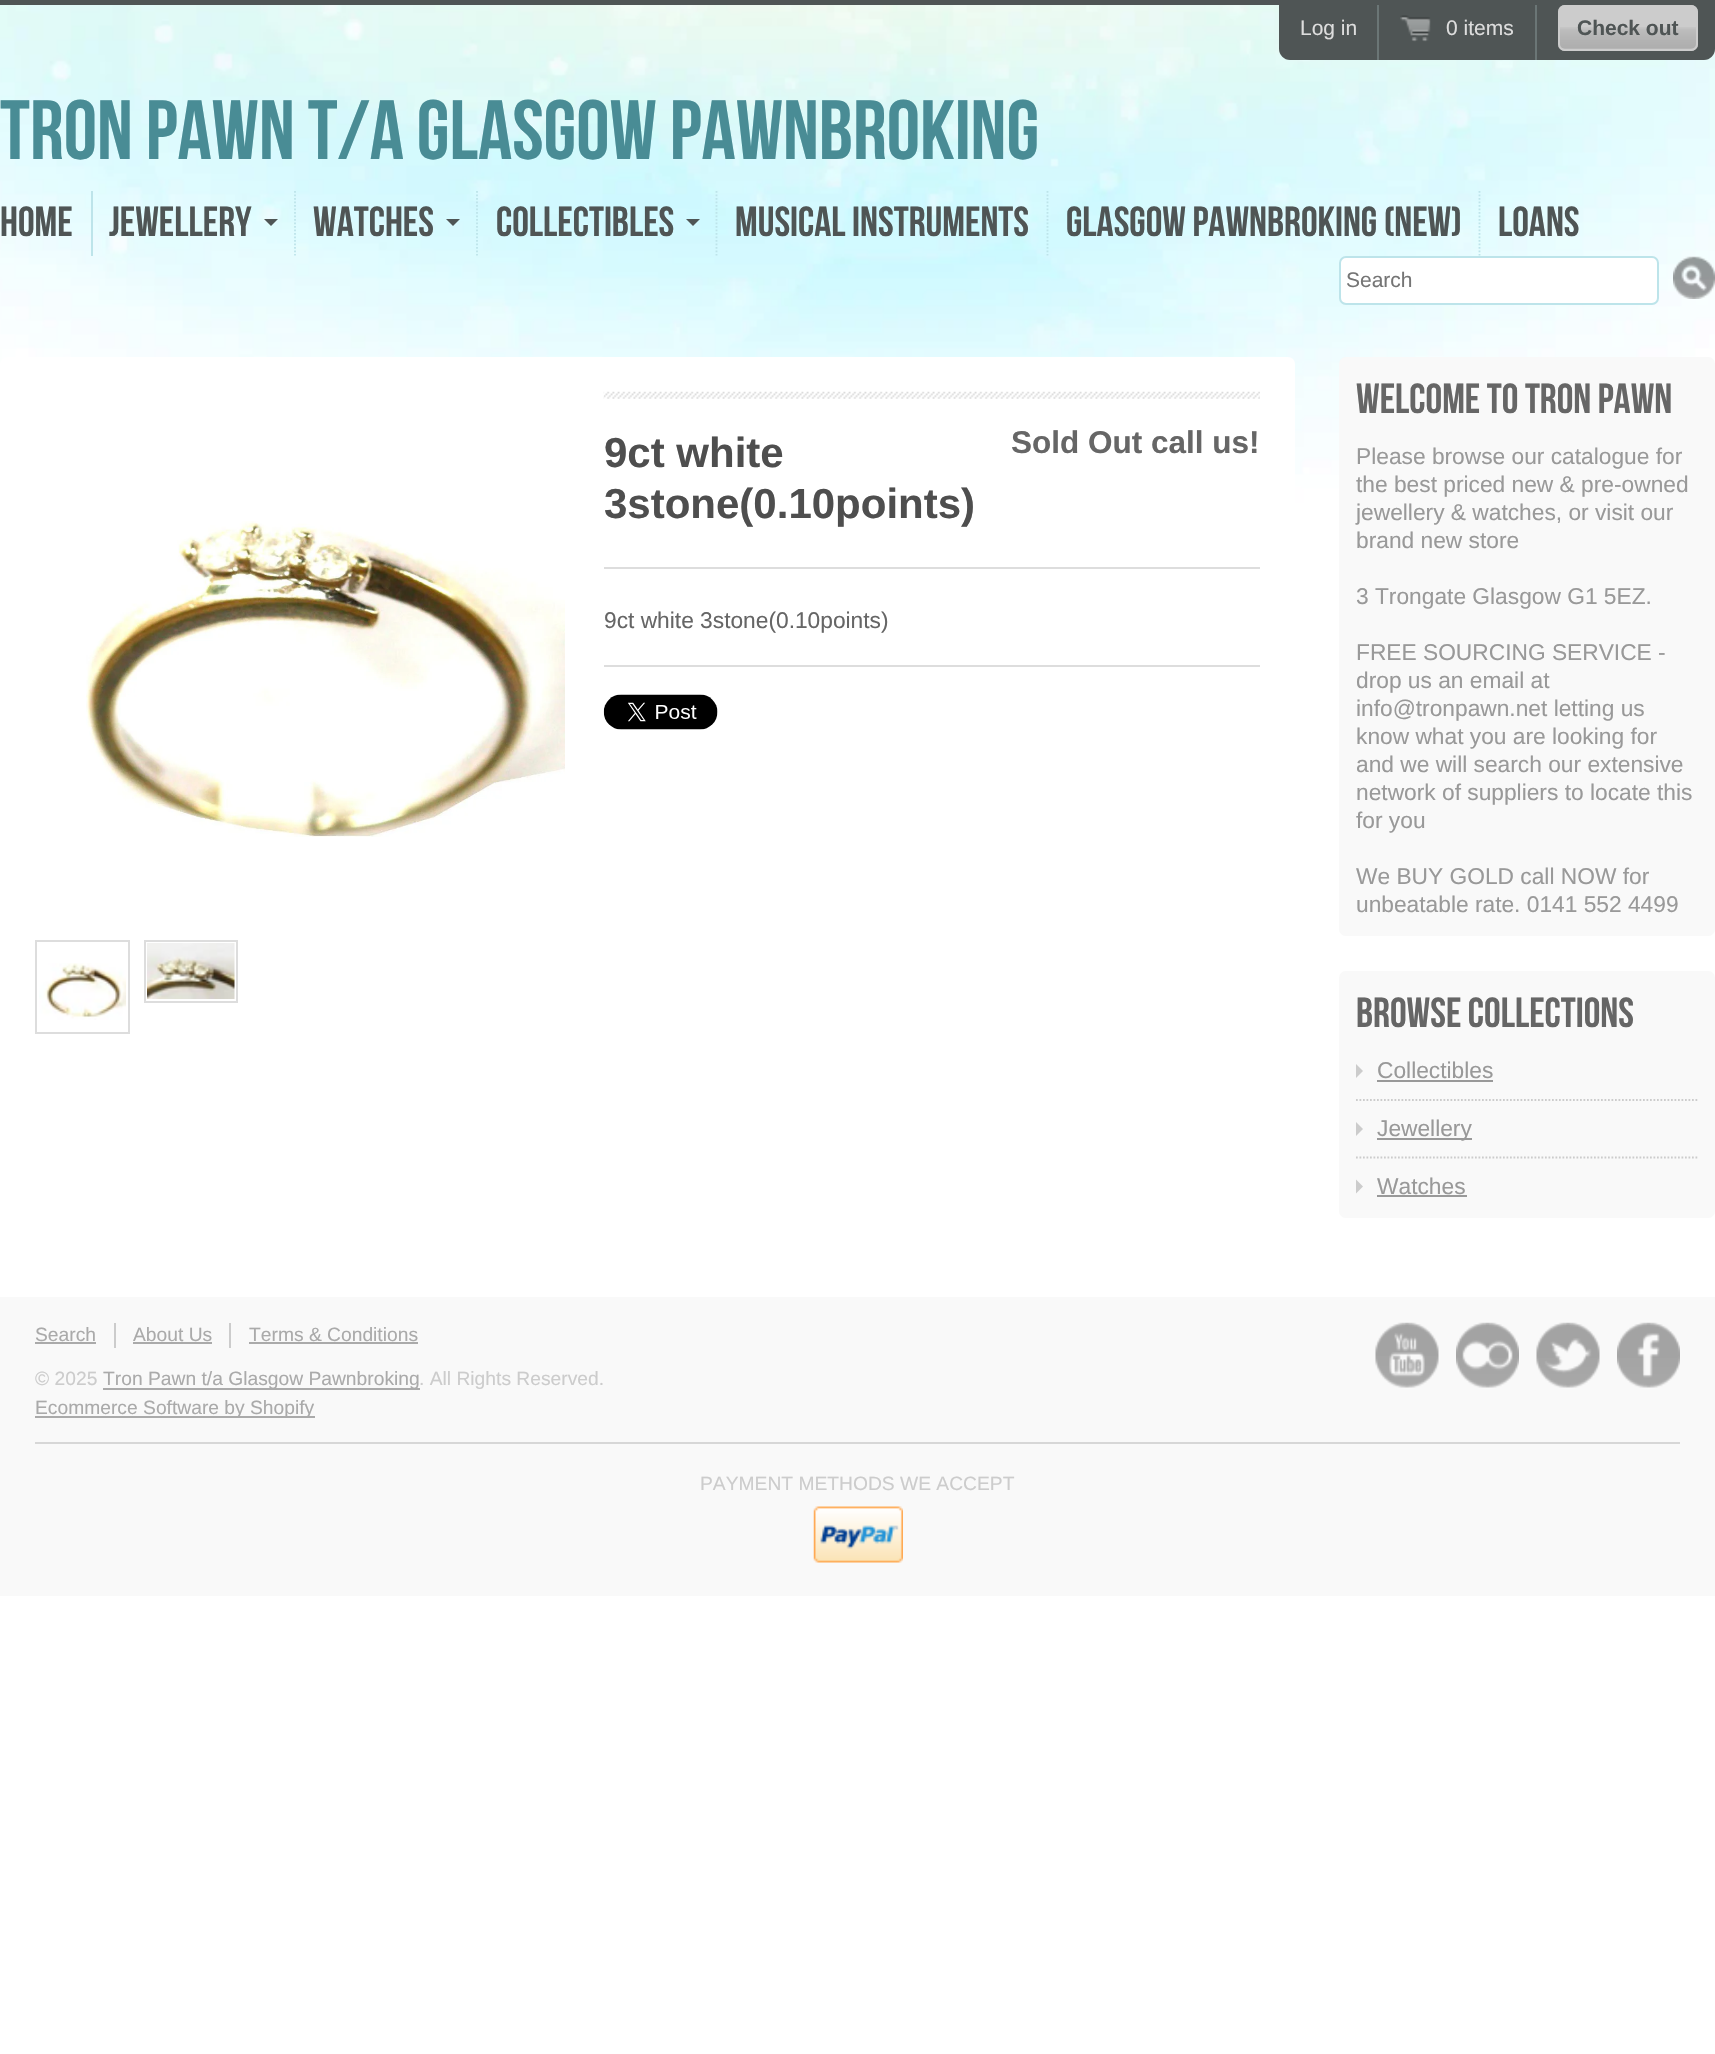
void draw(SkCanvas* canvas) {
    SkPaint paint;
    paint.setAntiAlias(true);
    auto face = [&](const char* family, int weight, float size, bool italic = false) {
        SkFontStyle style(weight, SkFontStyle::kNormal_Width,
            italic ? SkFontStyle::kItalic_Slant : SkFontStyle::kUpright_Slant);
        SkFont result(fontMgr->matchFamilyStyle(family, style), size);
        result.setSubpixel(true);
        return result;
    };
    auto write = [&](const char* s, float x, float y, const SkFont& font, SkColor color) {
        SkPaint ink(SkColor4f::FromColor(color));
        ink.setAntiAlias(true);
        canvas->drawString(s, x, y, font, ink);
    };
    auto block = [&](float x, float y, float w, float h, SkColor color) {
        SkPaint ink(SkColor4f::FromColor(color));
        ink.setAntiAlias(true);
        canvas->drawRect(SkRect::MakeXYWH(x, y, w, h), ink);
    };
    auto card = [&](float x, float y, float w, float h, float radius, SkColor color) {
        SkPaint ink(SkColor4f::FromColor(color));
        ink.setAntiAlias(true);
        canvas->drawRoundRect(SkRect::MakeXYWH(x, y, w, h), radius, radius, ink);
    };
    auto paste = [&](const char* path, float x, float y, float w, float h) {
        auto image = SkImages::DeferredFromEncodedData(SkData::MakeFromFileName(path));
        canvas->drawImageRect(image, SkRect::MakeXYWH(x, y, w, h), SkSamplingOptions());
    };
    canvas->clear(SK_ColorWHITE);
    paste("pic1.png", 0, 5, 1715, 505);
    block(0, 0, 1715, 5, SkColorSetRGB(79, 85, 85));
    paint.setColor(SkColorSetRGB(79, 85, 85));
    canvas->drawPath(SkPathBuilder().moveTo(1279, 5).lineTo(1715, 5).lineTo(1715, 49).cubicTo(1715, 55, 1710, 60, 1704, 60).lineTo(1290, 60).cubicTo(1284, 60, 1279, 55, 1279, 49).close().detach(), paint);
    block(1377, 5, 2, 55, SkColorSetRGB(107, 118, 118));
    auto kFont1 = face("Liberation Sans", 400, 21);
    write("Log in", 1300, 35, kFont1, SkColorSetRGB(221, 221, 221));
    block(1535, 5, 2, 55, SkColorSetRGB(107, 118, 118));
    paste("pic2.png", 1400, 15, 31, 27);
    write("0 items", 1446, 35, kFont1, SkColorSetRGB(221, 221, 221));
    card(1558, 5, 140, 46, 7, SkColorSetRGB(204, 204, 204));
    paste("pic3.png", 1558, 27, 138, 22);
    paint.setStyle(SkPaint::kStroke_Style);
    paint.setStrokeWidth(2);
    paint.setColor(SkColorSetRGB(204, 204, 204));
    canvas->drawRoundRect(SkRect::MakeXYWH(1559, 6, 138, 44), 6, 6, paint);
    auto kFont2 = face("Liberation Sans", 700, 21);
    write("Check out", 1577, 35, kFont2, SkColorSetRGB(79, 85, 85));
    auto kFont3 = face("Bebas Neue", 400, 84);
    write("Tron Pawn t/a Glasgow Pawnbroking", 0, 159, kFont3, SkColorSetRGB(73, 140, 149));
    block(91, 191, 2, 65, SkColorSetRGB(189, 228, 234));
    auto kFont4 = face("Bebas Neue", 400, 42);
    write("Home", 0, 236, kFont4, SkColorSetRGB(79, 85, 85));
    paint.setStrokeWidth(1.8f);
    paint.setColor(SkColorSetRGB(189, 228, 234));
    paint.setPathEffect(SkDashPathEffect::Make({{1.75f, 1.75f}}, 0));
    canvas->drawPath(SkPathBuilder().moveTo(295, 191).lineTo(295, 255.5f).detach(), paint);
    paint.setPathEffect(nullptr);
    write("Jewellery", 109, 236, kFont4, SkColorSetRGB(79, 85, 85));
    paint.setStyle(SkPaint::kFill_Style);
    paint.setColor(SkColorSetRGB(79, 85, 85));
    canvas->drawPath(SkPathBuilder().moveTo(264, 219).lineTo(278, 219).lineTo(271, 226).close().detach(), paint);
    paint.setStyle(SkPaint::kStroke_Style);
    paint.setColor(SkColorSetRGB(189, 228, 234));
    paint.setPathEffect(SkDashPathEffect::Make({{1.75f, 1.75f}}, 0));
    canvas->drawPath(SkPathBuilder().moveTo(477, 191).lineTo(477, 255.5f).detach(), paint);
    paint.setPathEffect(nullptr);
    write("Watches", 313, 236, kFont4, SkColorSetRGB(79, 85, 85));
    paint.setStyle(SkPaint::kFill_Style);
    paint.setColor(SkColorSetRGB(79, 85, 85));
    canvas->drawPath(SkPathBuilder().moveTo(446, 219).lineTo(460, 219).lineTo(453, 226).close().detach(), paint);
    paint.setStyle(SkPaint::kStroke_Style);
    paint.setColor(SkColorSetRGB(189, 228, 234));
    paint.setPathEffect(SkDashPathEffect::Make({{1.75f, 1.75f}}, 0));
    canvas->drawPath(SkPathBuilder().moveTo(716.5f, 191).lineTo(716.5f, 255.5f).detach(), paint);
    paint.setPathEffect(nullptr);
    write("Collectibles", 496, 236, kFont4, SkColorSetRGB(79, 85, 85));
    paint.setStyle(SkPaint::kFill_Style);
    paint.setColor(SkColorSetRGB(79, 85, 85));
    canvas->drawPath(SkPathBuilder().moveTo(686, 219).lineTo(700, 219).lineTo(693, 226).close().detach(), paint);
    paint.setStyle(SkPaint::kStroke_Style);
    paint.setColor(SkColorSetRGB(189, 228, 234));
    paint.setPathEffect(SkDashPathEffect::Make({{1.75f, 1.75f}}, 0));
    canvas->drawPath(SkPathBuilder().moveTo(1047.5f, 191).lineTo(1047.5f, 255.5f).detach(), paint);
    paint.setPathEffect(nullptr);
    write("Musical Instruments", 735, 236, kFont4, SkColorSetRGB(79, 85, 85));
    paint.setPathEffect(SkDashPathEffect::Make({{1.75f, 1.75f}}, 0));
    canvas->drawPath(SkPathBuilder().moveTo(1479.5f, 191).lineTo(1479.5f, 255.5f).detach(), paint);
    paint.setPathEffect(nullptr);
    write("Glasgow Pawnbroking (NEW)", 1066, 236, kFont4, SkColorSetRGB(79, 85, 85));
    write("LOANS", 1498, 236, kFont4, SkColorSetRGB(79, 85, 85));
    paint.setStyle(SkPaint::kFill_Style);
    paint.setColor(SK_ColorWHITE);
    canvas->drawRoundRect(SkRect::MakeXYWH(1340, 257, 318, 47), 6, 6, paint);
    paint.setStyle(SkPaint::kStroke_Style);
    paint.setStrokeWidth(2);
    paint.setColor(SkColorSetRGB(189, 228, 234));
    canvas->drawRoundRect(SkRect::MakeXYWH(1340, 257, 318, 47), 6, 6, paint);
    write("Search", 1346, 287, kFont1, SkColorSetRGB(117, 117, 117));
    paste("pic4.png", 1673, 256, 42, 43);
    paint.setStyle(SkPaint::kFill_Style);
    paint.setColor(SK_ColorWHITE);
    canvas->drawPath(SkPathBuilder().moveTo(7, 357).lineTo(1288, 357).cubicTo(1292, 357, 1295, 360, 1295, 364).lineTo(1295, 1083).lineTo(0, 1083).lineTo(0, 364).cubicTo(0, 360, 3, 357, 7, 357).close().detach(), paint);
    paste("pic5.png", 86, 521, 479, 316);
    paint.setStyle(SkPaint::kStroke_Style);
    paint.setColor(SkColorSetRGB(221, 221, 221));
    canvas->drawRect(SkRect::MakeXYWH(36, 941, 93, 92), paint);
    paste("pic6.png", 39, 963, 87, 57);
    canvas->drawRect(SkRect::MakeXYWH(145, 941, 92, 61), paint);
    paste("pic7.png", 147, 943, 88, 56);
    paste("pic8.png", 603, 391, 657, 8);
    block(604, 567, 656, 2, SkColorSetRGB(221, 221, 221));
    auto kFont5 = face("Liberation Sans", 700, 42);
    write("9ct white", 604, 467, kFont5, SkColorSetRGB(78, 78, 78));
    write("3stone(0.10points)", 604, 518, kFont5, SkColorSetRGB(78, 78, 78));
    auto kFont6 = face("Liberation Sans", 700, 31.5f);
    write("Sold Out call us!", 1011, 453, kFont6, SkColorSetRGB(102, 102, 102));
    auto kFont7 = face("Liberation Sans", 400, 22.75f);
    write("9ct white 3stone(0.10points)", 604, 628, kFont7, SkColorSetRGB(102, 102, 102));
    block(604, 665, 656, 2, SkColorSetRGB(221, 221, 221));
    paste("pic9.png", 603, 694, 115, 36);
    card(1339, 357, 376, 579, 7, SkColorSetRGB(249, 249, 249));
    write("Welcome to Tron Pawn", 1356, 413, kFont4, SkColorSetRGB(102, 102, 102));
    write("Please browse our catalogue for", 1356, 464, kFont7, SkColorSetRGB(153, 153, 153));
    write("the best priced new & pre-owned", 1356, 492, kFont7, SkColorSetRGB(153, 153, 153));
    write("jewellery & watches, or visit our", 1356, 520, kFont7, SkColorSetRGB(153, 153, 153));
    write("brand new store", 1356, 548, kFont7, SkColorSetRGB(153, 153, 153));
    write("3 Trongate Glasgow G1 5EZ.", 1356, 604, kFont7, SkColorSetRGB(153, 153, 153));
    write("FREE SOURCING SERVICE -", 1356, 660, kFont7, SkColorSetRGB(153, 153, 153));
    write("drop us an email at", 1356, 688, kFont7, SkColorSetRGB(153, 153, 153));
    write("info@tronpawn.net letting us", 1356, 716, kFont7, SkColorSetRGB(153, 153, 153));
    write("know what you are looking for", 1356, 744, kFont7, SkColorSetRGB(153, 153, 153));
    write("and we will search our extensive", 1356, 772, kFont7, SkColorSetRGB(153, 153, 153));
    write("network of suppliers to locate this", 1356, 800, kFont7, SkColorSetRGB(153, 153, 153));
    write("for you", 1356, 828, kFont7, SkColorSetRGB(153, 153, 153));
    write("We BUY GOLD call NOW for", 1356, 884, kFont7, SkColorSetRGB(153, 153, 153));
    write("unbeatable rate. 0141 552 4499", 1356, 912, kFont7, SkColorSetRGB(153, 153, 153));
    card(1339, 971, 376, 247, 7, SkColorSetRGB(249, 249, 249));
    write("Browse Collections", 1356, 1027, kFont4, SkColorSetRGB(102, 102, 102));
    paint.setStyle(SkPaint::kFill_Style);
    paint.setColor(SkColorSetRGB(204, 204, 204));
    canvas->drawPath(SkPathBuilder().moveTo(1356, 1078).lineTo(1356, 1064).lineTo(1363, 1071).close().detach(), paint);
    write("Collectibles", 1377, 1078, kFont7, SkColorSetRGB(153, 153, 153));
    block(1377, 1080, 116, 2, SkColorSetRGB(153, 153, 153));
    paint.setStyle(SkPaint::kStroke_Style);
    paint.setStrokeWidth(1.8f);
    paint.setPathEffect(SkDashPathEffect::Make({{1.75f, 1.75f}}, 0));
    canvas->drawPath(SkPathBuilder().moveTo(1356, 1100).lineTo(1697.5f, 1100).detach(), paint);
    paint.setPathEffect(nullptr);
    paint.setStyle(SkPaint::kFill_Style);
    canvas->drawPath(SkPathBuilder().moveTo(1356, 1136).lineTo(1356, 1122).lineTo(1363, 1129).close().detach(), paint);
    block(1377, 1138, 95, 2, SkColorSetRGB(153, 153, 153));
    write("Jewellery", 1377, 1136, kFont7, SkColorSetRGB(153, 153, 153));
    paint.setStyle(SkPaint::kStroke_Style);
    paint.setPathEffect(SkDashPathEffect::Make({{1.75f, 1.75f}}, 0));
    canvas->drawPath(SkPathBuilder().moveTo(1356, 1157.5f).lineTo(1697.5f, 1157.5f).detach(), paint);
    paint.setPathEffect(nullptr);
    paint.setStyle(SkPaint::kFill_Style);
    canvas->drawPath(SkPathBuilder().moveTo(1356, 1193.5f).lineTo(1356, 1179.5f).lineTo(1363, 1186.5f).close().detach(), paint);
    write("Watches", 1377, 1194, kFont7, SkColorSetRGB(153, 153, 153));
    block(1377, 1195, 90, 2, SkColorSetRGB(153, 153, 153));
    block(0, 1297, 1715, 299, SkColorSetRGB(249, 249, 249));
    auto kFont8 = face("Liberation Sans", 400, 19.25f);
    write("Search", 35, 1341, kFont8, SkColorSetRGB(170, 170, 170));
    block(35, 1342, 61, 2, SkColorSetRGB(170, 170, 170));
    block(114, 1323, 2, 25, SkColorSetRGB(204, 204, 204));
    write("About Us", 133, 1341, kFont8, SkColorSetRGB(170, 170, 170));
    block(133, 1342, 79, 2, SkColorSetRGB(170, 170, 170));
    block(229, 1323, 2, 25, SkColorSetRGB(204, 204, 204));
    write("Terms & Conditions", 249, 1341, kFont8, SkColorSetRGB(170, 170, 170));
    block(249, 1342, 169, 2, SkColorSetRGB(170, 170, 170));
    write("© 2025", 35, 1385, kFont8, SkColorSetRGB(204, 204, 204));
    block(103, 1388, 317, 2, SkColorSetRGB(170, 170, 170));
    write("Tron Pawn t/a Glasgow Pawnbroking", 103, 1385, kFont8, SkColorSetRGB(170, 170, 170));
    write(". All Rights Reserved.", 419, 1385, kFont8, SkColorSetRGB(204, 204, 204));
    block(35, 1416, 280, 2, SkColorSetRGB(170, 170, 170));
    write("Ecommerce Software by Shopify", 35, 1414, kFont8, SkColorSetRGB(170, 170, 170));
    paste("pic10.png", 1375, 1322, 64, 66);
    paste("pic11.png", 1456, 1322, 63, 66);
    paste("pic12.png", 1536, 1322, 64, 66);
    paste("pic13.png", 1617, 1322, 63, 66);
    block(35, 1442, 1645, 2, SkColorSetRGB(215, 215, 215));
    write("PAYMENT METHODS WE ACCEPT", 700, 1490, kFont8, SkColorSetRGB(204, 204, 204));
    paste("pic14.png", 813, 1506, 90, 57);
}
